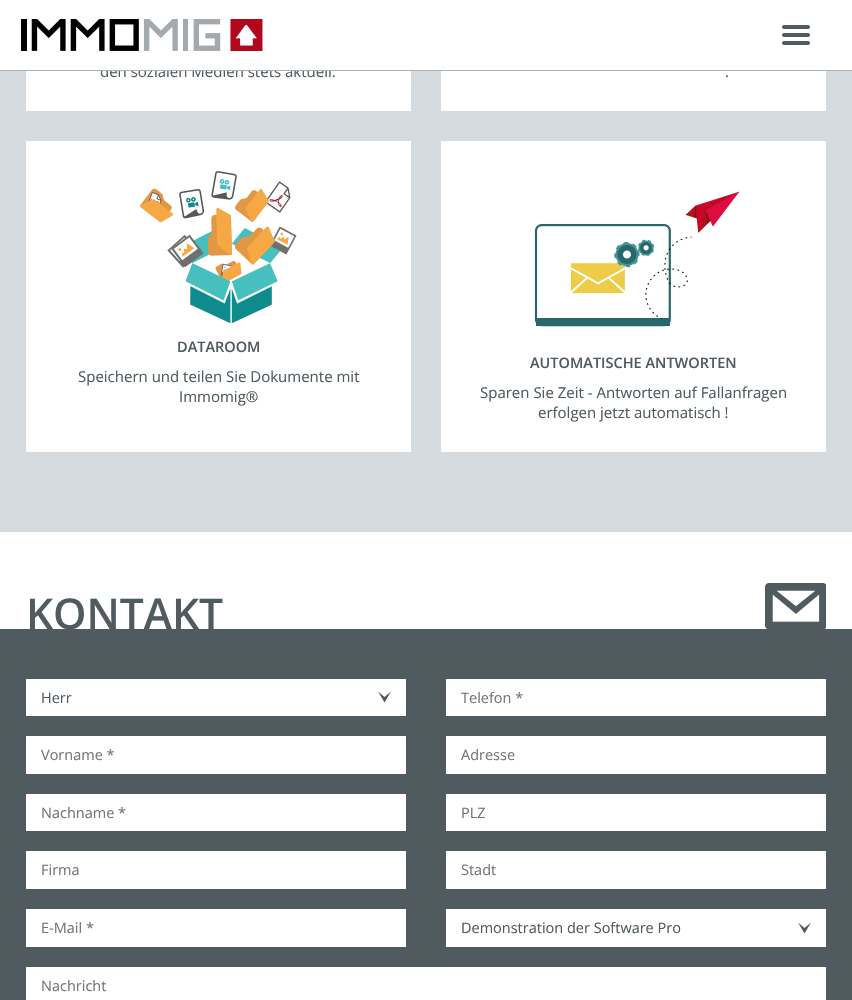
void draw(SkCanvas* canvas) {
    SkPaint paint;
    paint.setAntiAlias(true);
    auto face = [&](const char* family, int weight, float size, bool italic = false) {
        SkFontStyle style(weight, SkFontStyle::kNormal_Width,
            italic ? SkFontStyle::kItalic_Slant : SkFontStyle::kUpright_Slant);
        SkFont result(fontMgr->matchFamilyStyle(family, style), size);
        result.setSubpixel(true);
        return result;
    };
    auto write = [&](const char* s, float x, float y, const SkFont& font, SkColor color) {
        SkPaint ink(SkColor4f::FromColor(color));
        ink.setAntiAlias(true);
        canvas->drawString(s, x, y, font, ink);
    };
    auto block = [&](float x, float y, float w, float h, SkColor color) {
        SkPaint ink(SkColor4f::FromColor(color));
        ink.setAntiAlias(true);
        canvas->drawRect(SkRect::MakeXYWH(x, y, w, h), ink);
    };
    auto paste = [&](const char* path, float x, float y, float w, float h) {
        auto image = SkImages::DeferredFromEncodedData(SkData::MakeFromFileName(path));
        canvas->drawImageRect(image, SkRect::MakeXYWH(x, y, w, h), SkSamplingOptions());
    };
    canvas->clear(SkColorSetRGB(213, 219, 223));
    block(26, 71, 385, 40, SK_ColorWHITE);
    auto kFont1 = face("Open Sans", 400, 15);
    write("den sozialen Medien stets aktuell.", 100, 77, kFont1, SkColorSetRGB(80, 91, 96));
    block(0, 0, 852, 70, SK_ColorWHITE);
    block(0, 70, 852, 1, SkColorSetRGB(172, 178, 180));
    paste("pic1.png", 21, 19, 242, 32);
    paste("pic2.png", 782, 25, 28, 20);
    block(441, 71, 385, 40, SK_ColorWHITE);
    write(".", 725, 77, kFont1, SkColorSetRGB(80, 91, 96));
    block(26, 141, 385, 311, SK_ColorWHITE);
    paste("pic3.png", 140, 171, 157, 152);
    auto kFont2 = face("Open Sans", 600, 14.5f);
    write("DATAROOM", 177, 352, kFont2, SkColorSetRGB(80, 91, 96));
    write("Speichern und teilen Sie Dokumente mit", 78, 382, kFont1, SkColorSetRGB(80, 91, 96));
    write("Immomig®", 179, 402, kFont1, SkColorSetRGB(80, 91, 96));
    block(441, 141, 385, 311, SK_ColorWHITE);
    paste("pic4.png", 534, 191, 206, 136);
    write("AUTOMATISCHE ANTWORTEN", 530, 368, kFont2, SkColorSetRGB(80, 91, 96));
    write("Sparen Sie Zeit - Antworten auf Fallanfragen", 480, 398, kFont1, SkColorSetRGB(80, 91, 96));
    write("erfolgen jetzt automatisch !", 538, 418, kFont1, SkColorSetRGB(80, 91, 96));
    block(0, 629, 852, 371, SkColorSetRGB(80, 91, 96));
    block(0, 532, 852, 97, SK_ColorWHITE);
    auto kFont3 = face("Open Sans", 600, 42.5f);
    write("KONTAKT", 26, 629, kFont3, SkColorSetRGB(80, 91, 96));
    paste("pic5.png", 765, 583, 61, 46);
    block(26, 679, 380, 37, SK_ColorWHITE);
    paint.setColor(SkColorSetRGB(80, 91, 96));
    canvas->drawPath(SkPathBuilder().moveTo(384.5f, 702.5f).lineTo(378, 691.5f).lineTo(384.5f, 697).lineTo(391, 691.5f).close().detach(), paint);
    auto kFont4 = face("Open Sans", 400, 14.5f);
    write("Herr", 41, 703, kFont4, SkColorSetRGB(80, 91, 96));
    block(26, 736, 380, 38, SK_ColorWHITE);
    write("Vorname *", 41, 760, kFont4, SkColorSetRGB(117, 117, 117));
    block(26, 794, 380, 37, SK_ColorWHITE);
    write("Nachname *", 41, 818, kFont4, SkColorSetRGB(117, 117, 117));
    block(26, 851, 380, 38, SK_ColorWHITE);
    write("Firma", 41, 875, kFont4, SkColorSetRGB(117, 117, 117));
    block(26, 909, 380, 38, SK_ColorWHITE);
    write("E-Mail *", 41, 933, kFont4, SkColorSetRGB(117, 117, 117));
    block(446, 679, 380, 37, SK_ColorWHITE);
    write("Telefon *", 461, 703, kFont4, SkColorSetRGB(117, 117, 117));
    block(446, 736, 380, 38, SK_ColorWHITE);
    write("Adresse", 461, 760, kFont4, SkColorSetRGB(117, 117, 117));
    block(446, 794, 380, 37, SK_ColorWHITE);
    write("PLZ", 461, 818, kFont4, SkColorSetRGB(117, 117, 117));
    block(446, 851, 380, 38, SK_ColorWHITE);
    write("Stadt", 461, 875, kFont4, SkColorSetRGB(117, 117, 117));
    block(446, 909, 380, 38, SK_ColorWHITE);
    canvas->drawPath(SkPathBuilder().moveTo(804.5f, 933.5f).lineTo(798, 922.5f).lineTo(804.5f, 928).lineTo(811, 922.5f).close().detach(), paint);
    write("Demonstration der Software Pro", 461, 933, kFont4, SkColorSetRGB(80, 91, 96));
    block(26, 967, 800, 33, SK_ColorWHITE);
    write("Nachricht", 41, 991, kFont4, SkColorSetRGB(117, 117, 117));
}
